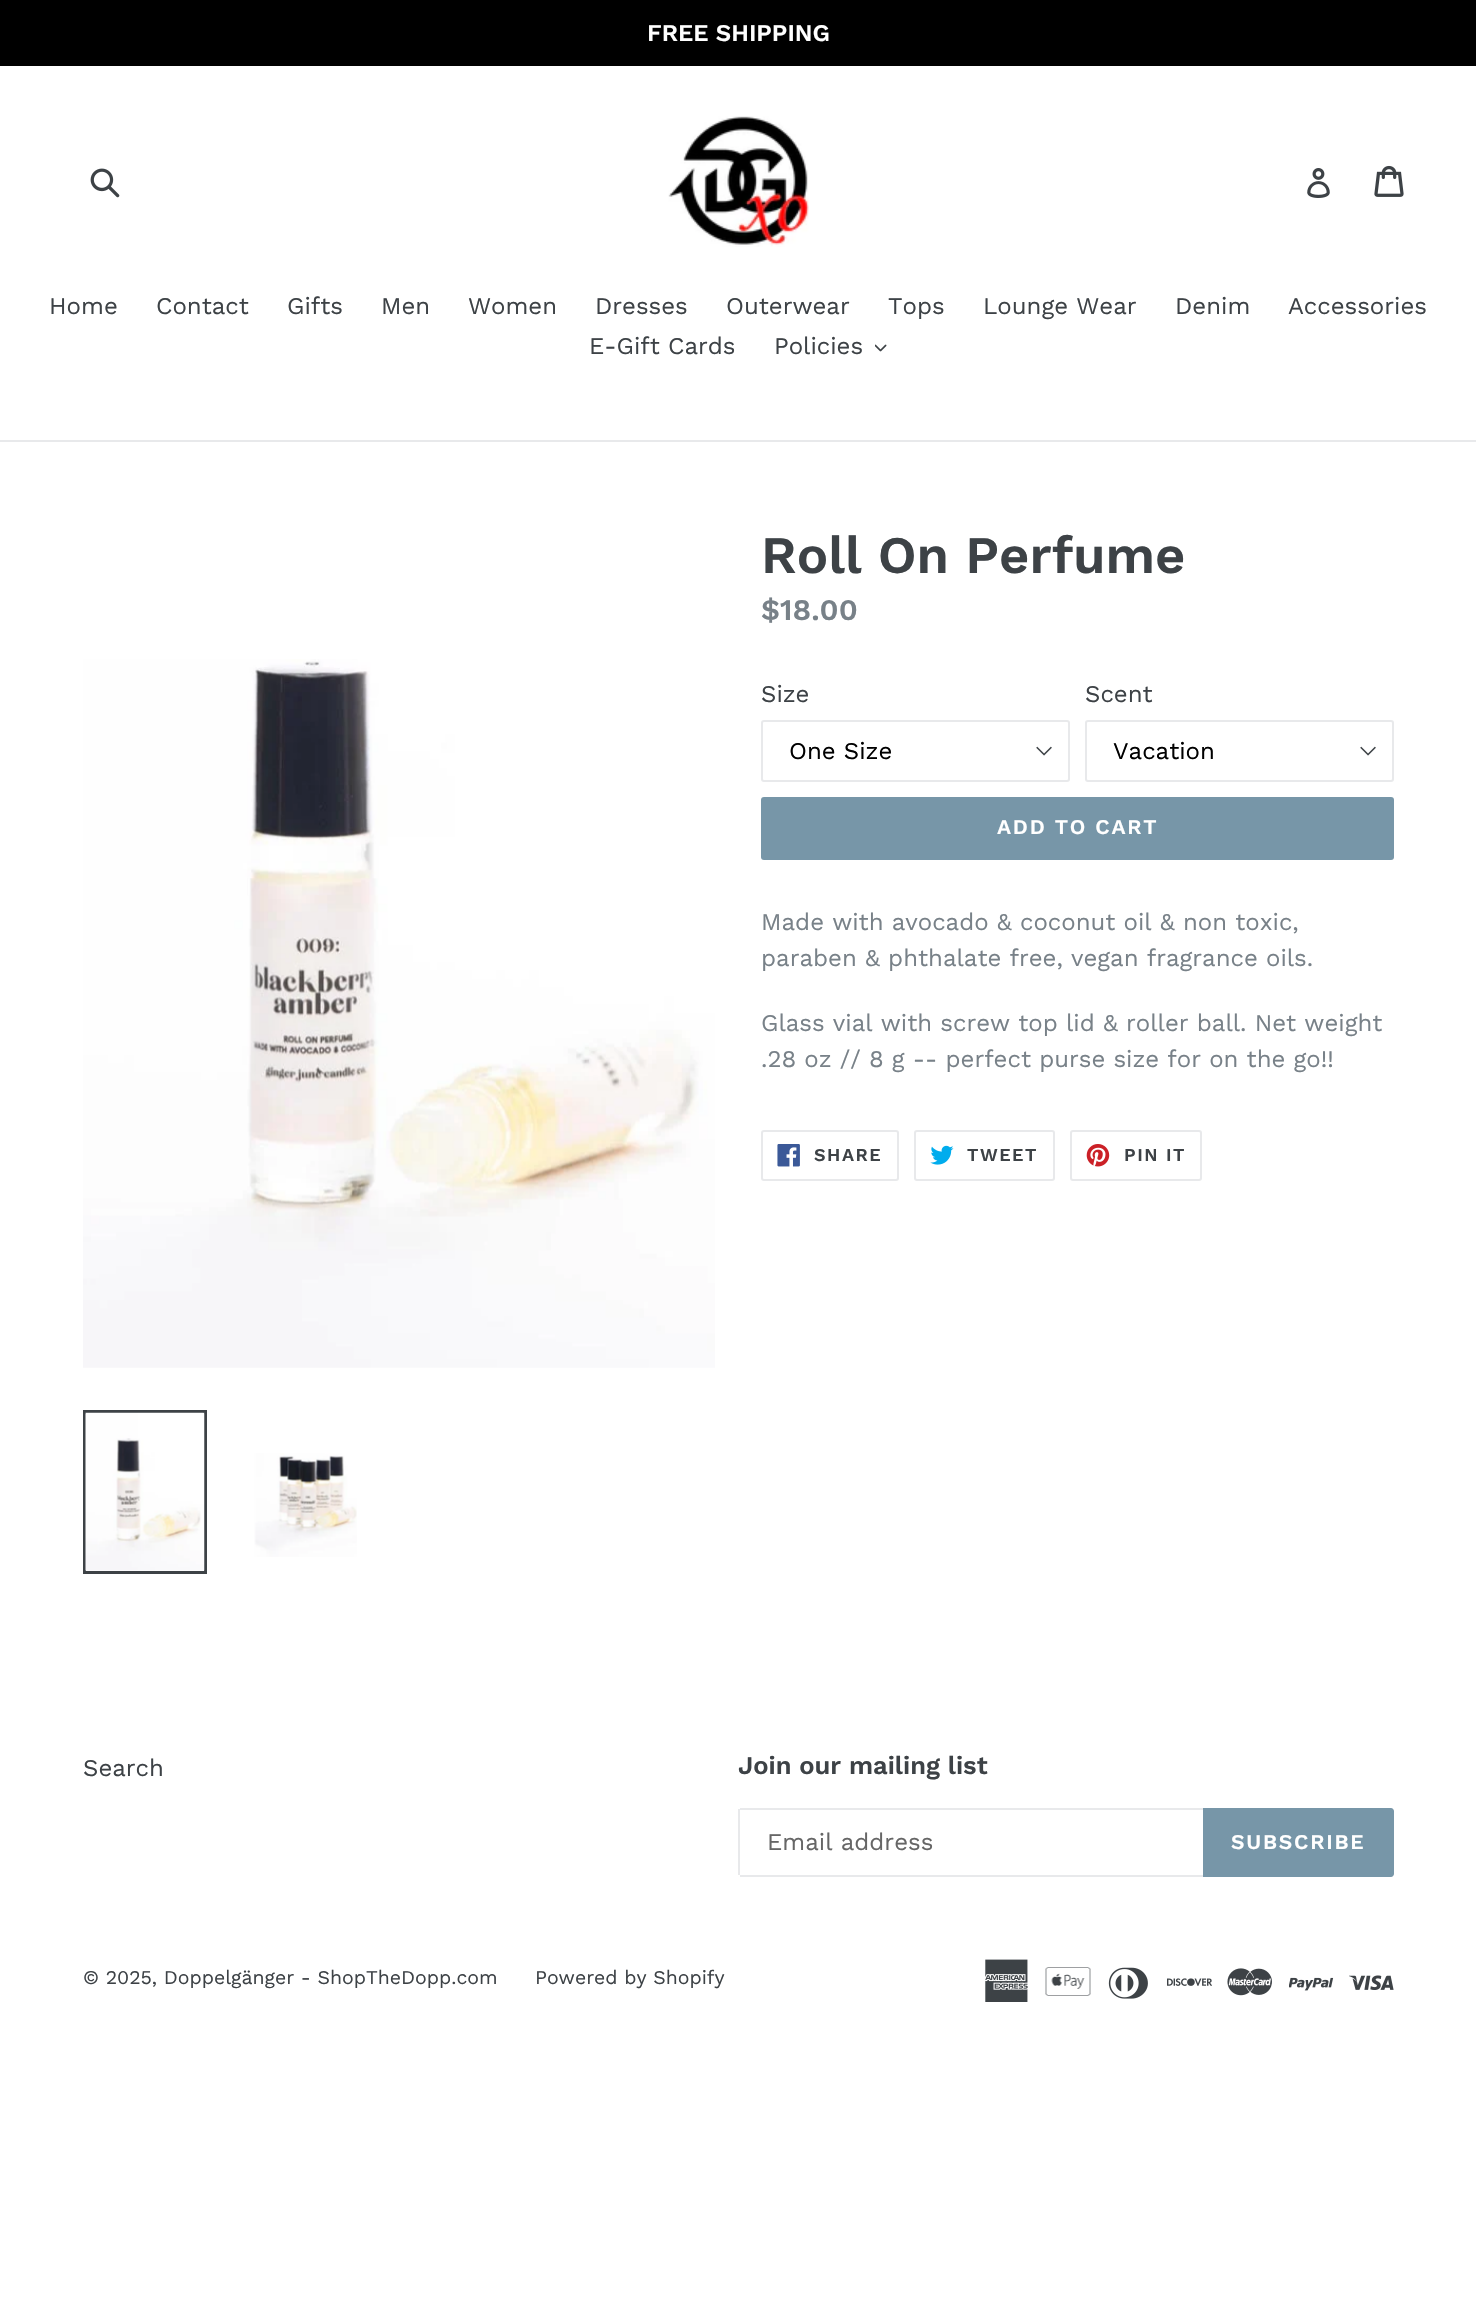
void draw(SkCanvas* canvas) {
    SkPaint paint;
    paint.setAntiAlias(true);
    auto face = [&](const char* family, int weight, float size, bool italic = false) {
        SkFontStyle style(weight, SkFontStyle::kNormal_Width,
            italic ? SkFontStyle::kItalic_Slant : SkFontStyle::kUpright_Slant);
        SkFont result(fontMgr->matchFamilyStyle(family, style), size);
        result.setSubpixel(true);
        return result;
    };
    auto write = [&](const char* s, float x, float y, const SkFont& font, SkColor color) {
        SkPaint ink(SkColor4f::FromColor(color));
        ink.setAntiAlias(true);
        canvas->drawString(s, x, y, font, ink);
    };
    auto writeSpaced = [&](const char* s, float x, float y, const SkFont& font, const SkPaint& ink, float letter, float word) {
        std::vector<SkGlyphID> glyphs(font.countText(s, strlen(s), SkTextEncoding::kUTF8));
        std::vector<float> xs(glyphs.size());
        font.textToGlyphs(s, strlen(s), SkTextEncoding::kUTF8, glyphs);
        font.getXPos(glyphs, xs, x);
        float extra = 0;
        for (size_t i = 0; i < glyphs.size(); i++) {
            xs[i] += extra;
            extra += letter + word * (glyphs[i] == font.unicharToGlyph(' '));
        }
        canvas->drawTextBlob(SkTextBlob::MakeFromPosHGlyphs(glyphs, xs, y, font), 0, 0, ink);
    };
    auto block = [&](float x, float y, float w, float h, SkColor color) {
        SkPaint ink(SkColor4f::FromColor(color));
        ink.setAntiAlias(true);
        canvas->drawRect(SkRect::MakeXYWH(x, y, w, h), ink);
    };
    auto card = [&](float x, float y, float w, float h, float radius, SkColor color) {
        SkPaint ink(SkColor4f::FromColor(color));
        ink.setAntiAlias(true);
        canvas->drawRoundRect(SkRect::MakeXYWH(x, y, w, h), radius, radius, ink);
    };
    auto paste = [&](const char* path, float x, float y, float w, float h) {
        auto image = SkImages::DeferredFromEncodedData(SkData::MakeFromFileName(path));
        canvas->drawImageRect(image, SkRect::MakeXYWH(x, y, w, h), SkSamplingOptions());
    };
    canvas->clear(SK_ColorWHITE);
    block(0, 0, 1476, 66, SK_ColorBLACK);
    auto kFont1 = face("Work Sans", 600, 24);
    write("FREE SHIPPING", 647, 41, kFont1, SK_ColorWHITE);
    paste("pic1.png", 90, 168, 30, 30);
    paste("pic2.png", 668, 116, 141, 131);
    paste("pic3.png", 1307, 168, 23, 30);
    paste("pic4.png", 1374, 165, 30, 32);
    block(0, 440, 1476, 2, SkColorSetRGB(232, 233, 235));
    auto kFont2 = face("Work Sans", 400, 24);
    write("Home", 49, 314, kFont2, SkColorSetRGB(61, 66, 70));
    write("Contact", 156, 314, kFont2, SkColorSetRGB(61, 66, 70));
    write("Gifts", 287, 314, kFont2, SkColorSetRGB(61, 66, 70));
    write("Men", 381, 314, kFont2, SkColorSetRGB(61, 66, 70));
    write("Women", 468, 314, kFont2, SkColorSetRGB(61, 66, 70));
    write("Dresses", 595, 314, kFont2, SkColorSetRGB(61, 66, 70));
    write("Outerwear", 726, 314, kFont2, SkColorSetRGB(61, 66, 70));
    write("Tops", 888, 314, kFont2, SkColorSetRGB(61, 66, 70));
    write("Lounge Wear", 983, 314, kFont2, SkColorSetRGB(61, 66, 70));
    write("Denim", 1175, 314, kFont2, SkColorSetRGB(61, 66, 70));
    write("Accessories", 1288, 314, kFont2, SkColorSetRGB(61, 66, 70));
    write("E-Gift Cards", 589, 354, kFont2, SkColorSetRGB(61, 66, 70));
    write("Policies", 774, 354, kFont2, SkColorSetRGB(61, 66, 70));
    paste("pic5.png", 875, 344, 12, 8);
    paste("pic6.png", 83, 659, 632, 709);
    paint.setStyle(SkPaint::kStroke_Style);
    paint.setStrokeWidth(3);
    paint.setColor(SkColorSetRGB(61, 66, 70));
    canvas->drawRect(SkRect::MakeXYWH(84.5f, 1411.5f, 121, 161), paint);
    paste("pic7.png", 85, 1412, 120, 159);
    paste("pic8.png", 254, 1453, 103, 104);
    auto kFont3 = face("Work Sans", 600, 52.5f);
    write("Roll On Perfume", 761, 573, kFont3, SkColorSetRGB(61, 66, 70));
    auto kFont4 = face("Work Sans", 600, 30);
    write("$18.00", 761, 620, kFont4, SkColorSetRGB(120, 129, 136));
    write("Size", 761, 702, kFont2, SkColorSetRGB(61, 66, 70));
    paste("pic9.png", 1036, 746, 16, 10);
    paint.setStrokeWidth(2);
    paint.setColor(SkColorSetRGB(232, 233, 235));
    canvas->drawRoundRect(SkRect::MakeXYWH(762, 721, 307, 60), 2, 2, paint);
    write("One Size", 789, 759, kFont2, SK_ColorBLACK);
    write("Scent", 1085, 702, kFont2, SkColorSetRGB(61, 66, 70));
    paste("pic9.png", 1360, 746, 16, 10);
    canvas->drawRoundRect(SkRect::MakeXYWH(1086, 721, 307, 60), 2, 2, paint);
    write("Vacation", 1113, 759, kFont2, SK_ColorBLACK);
    card(761, 797, 633, 63, 3, SkColorSetRGB(119, 150, 168));
    auto kFont5 = face("Work Sans", 600, 21);
    paint.setStyle(SkPaint::kFill_Style);
    paint.setColor(SK_ColorWHITE);
    writeSpaced("ADD TO CART", 997, 834, kFont5, paint, 1.75f, 0);
    write("Made with avocado & coconut oil & non toxic,", 761, 930, kFont2, SkColorSetRGB(120, 129, 136));
    write("paraben & phthalate free, vegan fragrance oils.", 761, 966, kFont2, SkColorSetRGB(120, 129, 136));
    write("Glass vial with screw top lid & roller ball. Net weight", 761, 1031, kFont2, SkColorSetRGB(120, 129, 136));
    write(".28 oz // 8 g -- perfect purse size for on the go!!", 761, 1067, kFont2, SkColorSetRGB(120, 129, 136));
    paint.setStyle(SkPaint::kStroke_Style);
    paint.setColor(SkColorSetRGB(232, 233, 235));
    canvas->drawRoundRect(SkRect::MakeXYWH(762, 1131, 136, 49), 2, 2, paint);
    paste("pic10.png", 777, 1144, 23, 23);
    auto kFont6 = face("Work Sans", 600, 18);
    paint.setStyle(SkPaint::kFill_Style);
    paint.setColor(SkColorSetRGB(61, 66, 70));
    writeSpaced("SHARE", 814, 1161, kFont6, paint, 1.5f, 0);
    paint.setStyle(SkPaint::kStroke_Style);
    paint.setColor(SkColorSetRGB(232, 233, 235));
    canvas->drawRoundRect(SkRect::MakeXYWH(915, 1131, 139, 49), 2, 2, paint);
    paste("pic11.png", 930, 1145, 24, 20);
    paint.setStyle(SkPaint::kFill_Style);
    paint.setColor(SkColorSetRGB(61, 66, 70));
    writeSpaced("TWEET", 967, 1161, kFont6, paint, 1.5f, 0);
    paint.setStyle(SkPaint::kStroke_Style);
    paint.setColor(SkColorSetRGB(232, 233, 235));
    canvas->drawRoundRect(SkRect::MakeXYWH(1071, 1131, 130, 49), 2, 2, paint);
    paste("pic12.png", 1086, 1144, 24, 23);
    paint.setStyle(SkPaint::kFill_Style);
    paint.setColor(SkColorSetRGB(61, 66, 70));
    writeSpaced("PIN IT", 1124, 1161, kFont6, paint, 1.5f, 0);
    write("Search", 83, 1776, kFont2, SkColorSetRGB(61, 66, 70));
    auto kFont7 = face("Work Sans", 600, 25.5f);
    write("Join our mailing list", 738, 1774, kFont7, SkColorSetRGB(61, 66, 70));
    block(740, 1808, 463, 2, SkColorSetRGB(232, 233, 235));
    block(740, 1875, 463, 2, SkColorSetRGB(232, 233, 235));
    block(738, 1809, 2, 66, SkColorSetRGB(232, 233, 235));
    write("Email address", 767, 1850, kFont2, SkColorSetRGB(102, 102, 102));
    paint.setColor(SkColorSetRGB(119, 150, 168));
    canvas->drawPath(SkPathBuilder().moveTo(1203, 1808).lineTo(1391, 1808).cubicTo(1392.5f, 1808, 1394, 1809.5f, 1394, 1811).lineTo(1394, 1874).cubicTo(1394, 1875.5f, 1392.5f, 1877, 1391, 1877).lineTo(1203, 1877).close().detach(), paint);
    paint.setColor(SK_ColorWHITE);
    writeSpaced("SUBSCRIBE", 1231, 1849, kFont5, paint, 1.75f, 0);
    auto kFont8 = face("Work Sans", 400, 19.5f);
    write("© 2025, Doppelgänger - ShopTheDopp.com", 83, 1984, kFont8, SkColorSetRGB(61, 66, 70));
    write("Powered by Shopify", 535, 1984, kFont8, SkColorSetRGB(61, 66, 70));
    paste("pic13.png", 985, 1959, 43, 43);
    paste("pic14.png", 1045, 1967, 46, 29);
    paste("pic15.png", 1108, 1967, 40, 32);
    paste("pic16.png", 1167, 1978, 45, 8);
    paste("pic17.png", 1227, 1968, 45, 28);
    paste("pic18.png", 1289, 1977, 45, 14);
    paste("pic19.png", 1349, 1975, 45, 15);
}
